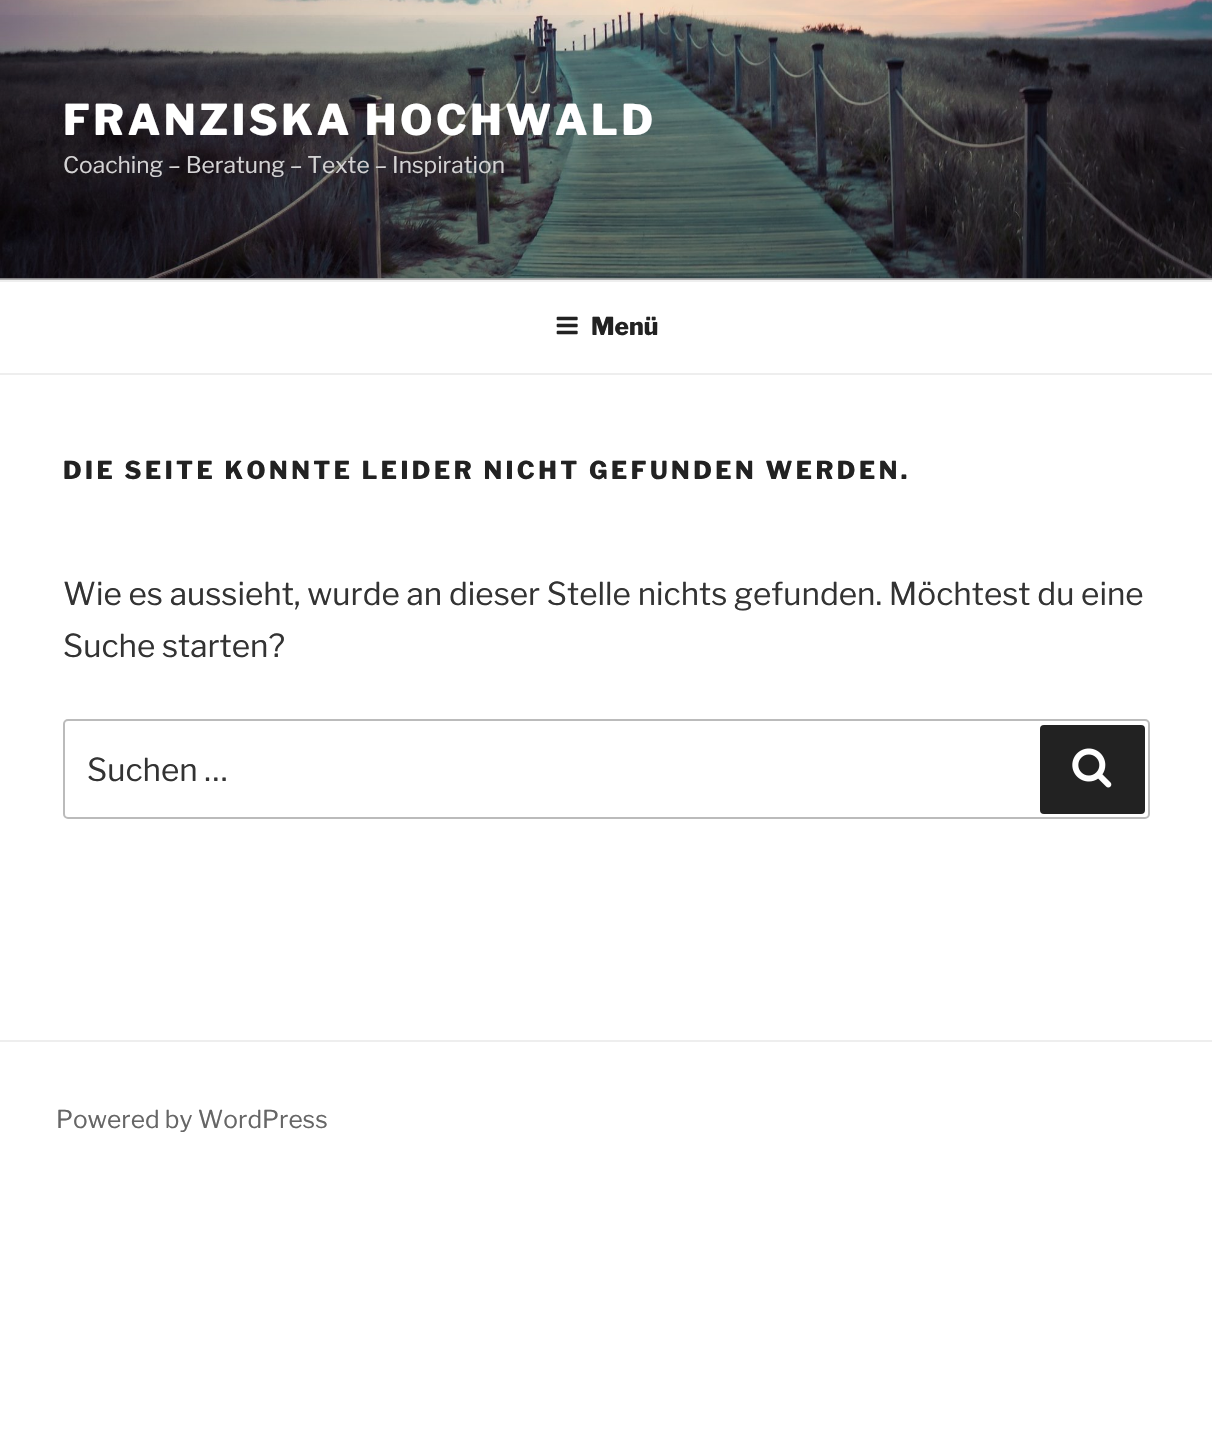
void draw(SkCanvas* canvas) {
    SkPaint paint;
    paint.setAntiAlias(true);
    auto face = [&](const char* family, int weight, float size, bool italic = false) {
        SkFontStyle style(weight, SkFontStyle::kNormal_Width,
            italic ? SkFontStyle::kItalic_Slant : SkFontStyle::kUpright_Slant);
        SkFont result(fontMgr->matchFamilyStyle(family, style), size);
        result.setSubpixel(true);
        return result;
    };
    auto write = [&](const char* s, float x, float y, const SkFont& font, SkColor color) {
        SkPaint ink(SkColor4f::FromColor(color));
        ink.setAntiAlias(true);
        canvas->drawString(s, x, y, font, ink);
    };
    auto writeSpaced = [&](const char* s, float x, float y, const SkFont& font, const SkPaint& ink, float letter, float word) {
        std::vector<SkGlyphID> glyphs(font.countText(s, strlen(s), SkTextEncoding::kUTF8));
        std::vector<float> xs(glyphs.size());
        font.textToGlyphs(s, strlen(s), SkTextEncoding::kUTF8, glyphs);
        font.getXPos(glyphs, xs, x);
        float extra = 0;
        for (size_t i = 0; i < glyphs.size(); i++) {
            xs[i] += extra;
            extra += letter + word * (glyphs[i] == font.unicharToGlyph(' '));
        }
        canvas->drawTextBlob(SkTextBlob::MakeFromPosHGlyphs(glyphs, xs, y, font), 0, 0, ink);
    };
    auto block = [&](float x, float y, float w, float h, SkColor color) {
        SkPaint ink(SkColor4f::FromColor(color));
        ink.setAntiAlias(true);
        canvas->drawRect(SkRect::MakeXYWH(x, y, w, h), ink);
    };
    auto card = [&](float x, float y, float w, float h, float radius, SkColor color) {
        SkPaint ink(SkColor4f::FromColor(color));
        ink.setAntiAlias(true);
        canvas->drawRoundRect(SkRect::MakeXYWH(x, y, w, h), radius, radius, ink);
    };
    auto paste = [&](const char* path, float x, float y, float w, float h) {
        auto image = SkImages::DeferredFromEncodedData(SkData::MakeFromFileName(path));
        canvas->drawImageRect(image, SkRect::MakeXYWH(x, y, w, h), SkSamplingOptions());
    };
    canvas->clear(SK_ColorWHITE);
    block(0, 278, 1212, 2, SkColorSetRGB(250, 250, 250));
    paste("pic1.png", 0, 0, 1212, 279);
    {
        const SkColor colors[] = {SkColorSetARGB(0, 0, 0, 0), SkColorSetARGB(77, 0, 0, 0), SkColorSetARGB(77, 0, 0, 0)};
        const float stops[] = {0, 0.75f, 1};
        const SkPoint ends[] = {{606, 0}, {606, 280}};
        paint.setShader(SkGradientShader::MakeLinear(ends, colors, stops, 3, SkTileMode::kClamp));
        paint.setAlpha(255);
    }
    canvas->drawRect(SkRect::MakeXYWH(0, 15, 1212, 265), paint);
    auto kFont1 = face("Libre Franklin", 800, 42);
    paint.setShader(nullptr);
    paint.setColor(SK_ColorWHITE);
    writeSpaced("FRANZISKA HOCHWALD", 63, 135, kFont1, paint, 3.4f, 0);
    auto kFont2 = face("Libre Franklin", 400, 22.75f);
    write("Coaching – Beratung – Texte – Inspiration", 63, 173, kFont2, SkColorSetRGB(212, 211, 212));
    block(0, 280, 1212, 2, SkColorSetRGB(238, 238, 238));
    block(0, 373, 1212, 2, SkColorSetRGB(238, 238, 238));
    paste("pic2.png", 556, 316, 22, 19);
    auto kFont3 = face("Libre Franklin", 800, 24.5f);
    write("Menü", 591, 335, kFont3, SkColorSetRGB(34, 34, 34));
    paint.setColor(SkColorSetRGB(34, 34, 34));
    writeSpaced("DIE SEITE KONNTE LEIDER NICHT GEFUNDEN WERDEN.", 63, 479, kFont3, paint, 3.45f, 0);
    auto kFont4 = face("Libre Franklin", 400, 31.5f);
    write("Wie es aussieht, wurde an dieser Stelle nichts gefunden. Möchtest du eine", 63, 605, kFont4, SkColorSetRGB(51, 51, 51));
    write("Suche starten?", 63, 657, kFont4, SkColorSetRGB(51, 51, 51));
    paint.setStyle(SkPaint::kStroke_Style);
    paint.setStrokeWidth(2);
    paint.setColor(SkColorSetRGB(187, 187, 187));
    canvas->drawRoundRect(SkRect::MakeXYWH(64, 720, 1085, 98), 4, 4, paint);
    write("Suchen …", 87, 781, kFont4, SkColorSetRGB(51, 51, 51));
    card(1040, 725, 105, 89, 4, SkColorSetRGB(34, 34, 34));
    paste("pic3.png", 1072, 748, 40, 40);
    block(0, 1040, 1212, 2, SkColorSetRGB(238, 238, 238));
    auto kFont5 = face("Libre Franklin", 400, 24.5f);
    write("Powered by WordPress", 56, 1128, kFont5, SkColorSetRGB(102, 102, 102));
}
